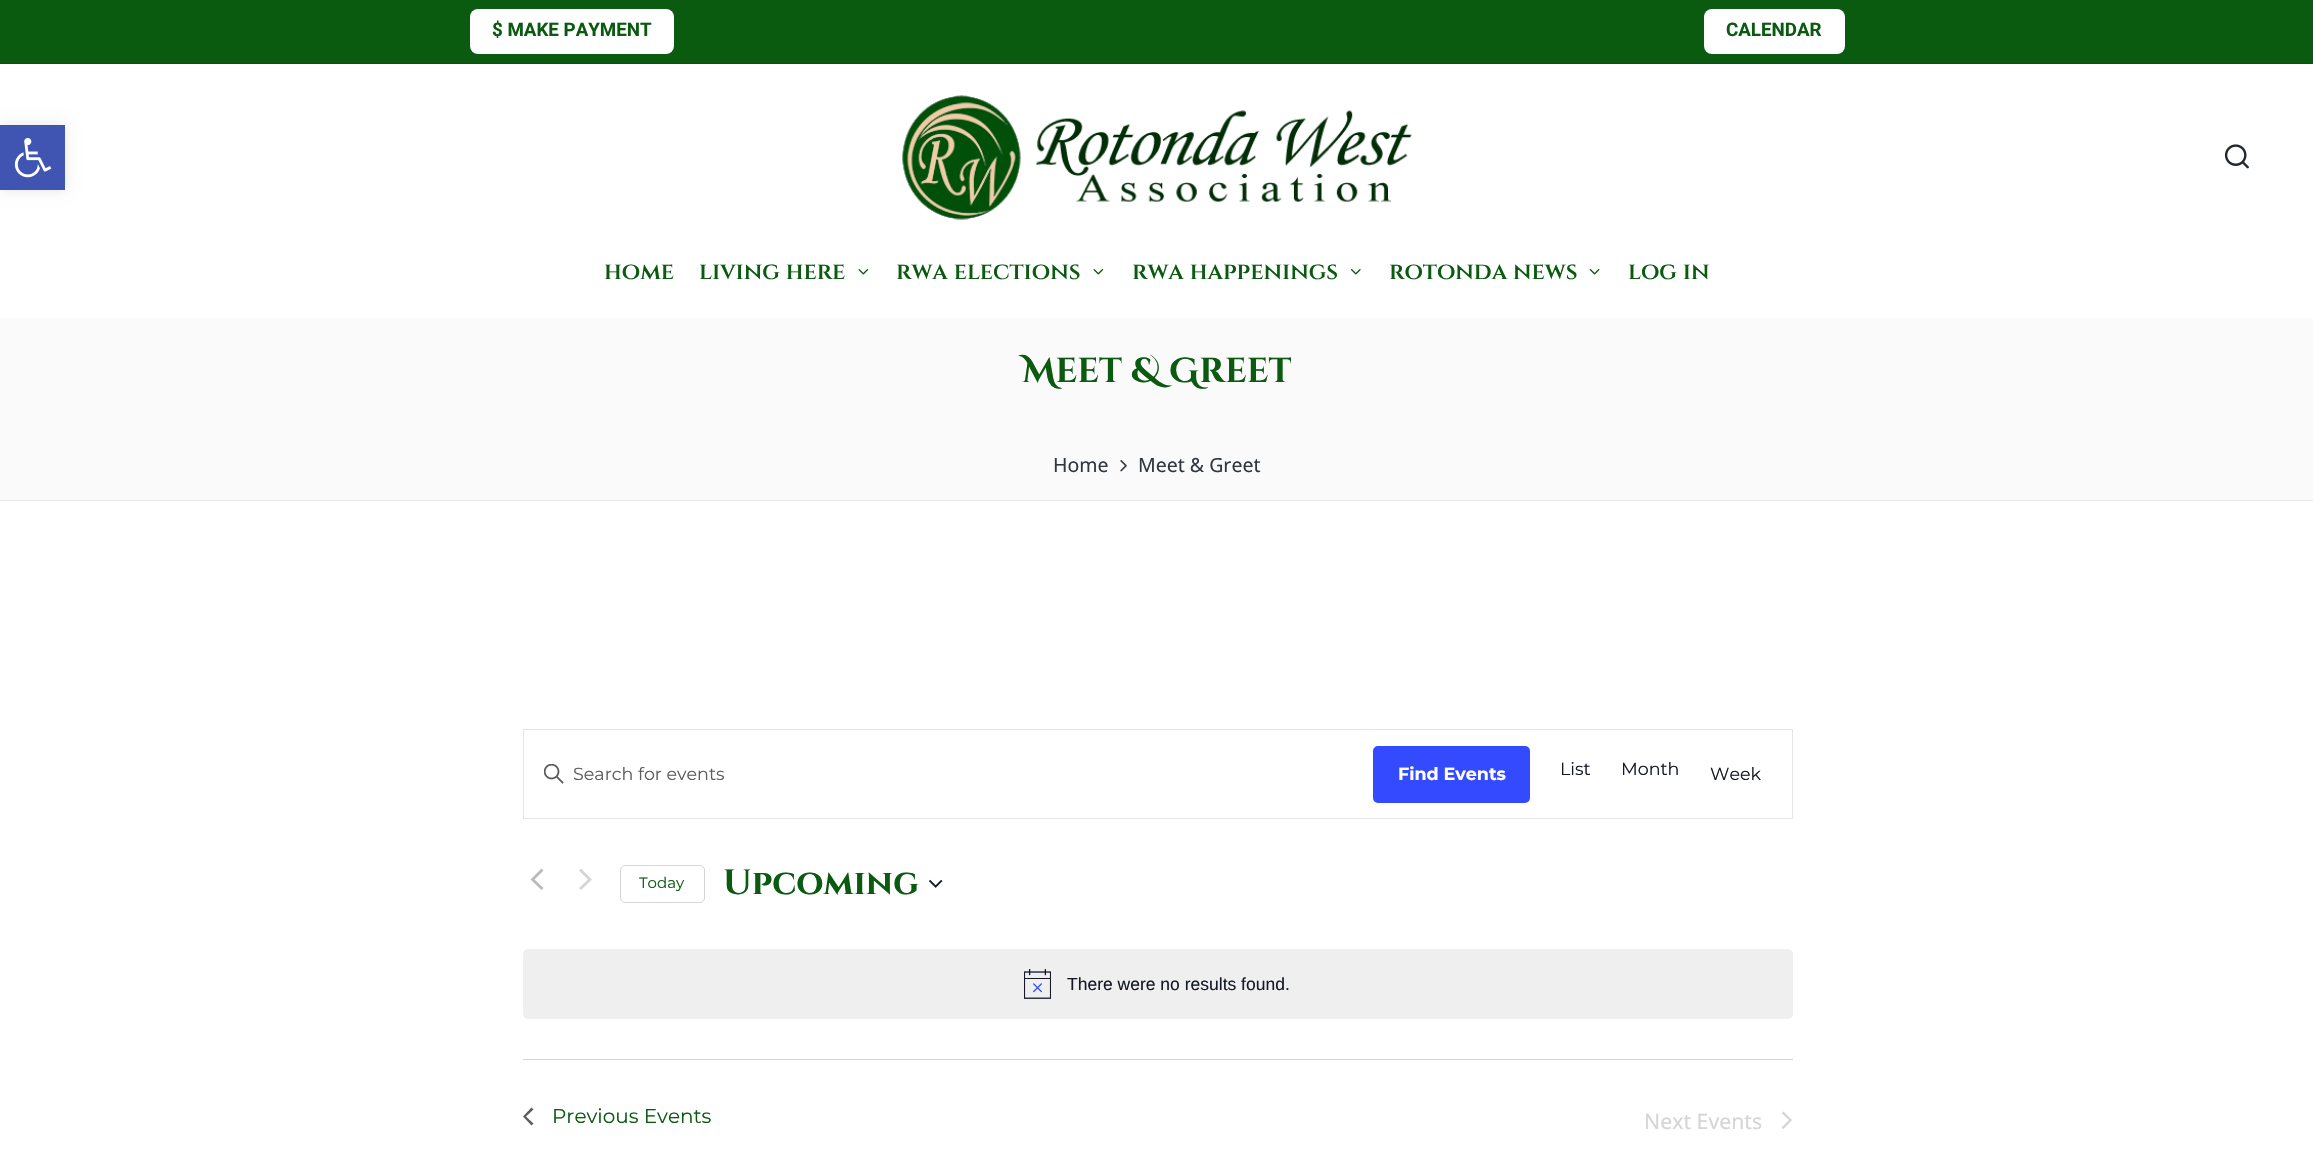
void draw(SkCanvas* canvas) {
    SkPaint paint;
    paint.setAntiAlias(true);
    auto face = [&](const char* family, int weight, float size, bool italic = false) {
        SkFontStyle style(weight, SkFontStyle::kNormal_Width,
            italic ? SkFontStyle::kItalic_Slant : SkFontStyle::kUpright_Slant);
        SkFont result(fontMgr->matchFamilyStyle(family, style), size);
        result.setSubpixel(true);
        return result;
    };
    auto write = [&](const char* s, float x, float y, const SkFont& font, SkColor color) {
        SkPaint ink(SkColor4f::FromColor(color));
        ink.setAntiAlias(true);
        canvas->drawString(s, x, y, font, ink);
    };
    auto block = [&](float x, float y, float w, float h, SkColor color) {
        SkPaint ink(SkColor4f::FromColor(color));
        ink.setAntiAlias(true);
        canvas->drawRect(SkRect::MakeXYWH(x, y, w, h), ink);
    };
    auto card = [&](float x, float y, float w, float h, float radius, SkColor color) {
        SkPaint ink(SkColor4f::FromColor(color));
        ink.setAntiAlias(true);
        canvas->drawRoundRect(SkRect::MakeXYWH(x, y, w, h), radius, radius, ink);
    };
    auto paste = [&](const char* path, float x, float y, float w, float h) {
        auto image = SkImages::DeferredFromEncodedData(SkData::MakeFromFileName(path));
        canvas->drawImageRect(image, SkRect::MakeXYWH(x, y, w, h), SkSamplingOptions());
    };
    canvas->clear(SK_ColorWHITE);
    paint.setColor(SkColorSetARGB(26, 0, 0, 0));
    paint.setMaskFilter(SkMaskFilter::MakeBlur(kNormal_SkBlurStyle, 6));
    canvas->drawRect(SkRect::MakeXYWH(0, 125, 65, 65), paint);
    paint.setMaskFilter(nullptr);
    block(0, 125, 65, 65, SkColorSetRGB(64, 84, 178));
    paste("pic1.png", 14, 138, 38, 40);
    block(0, 0, 2313, 63, SkColorSetRGB(10, 90, 16));
    block(0, 63, 2313, 1, SkColorSetRGB(9, 82, 15));
    card(470, 9, 204, 45, 8, SK_ColorWHITE);
    auto kFont1 = face("Roboto", 700, 18.75f);
    write("$ MAKE PAYMENT", 492, 36, kFont1, SkColorSetRGB(10, 90, 16));
    card(1704, 9, 141, 45, 8, SK_ColorWHITE);
    write("CALENDAR", 1726, 36, kFont1, SkColorSetRGB(10, 90, 16));
    paste("pic2.png", 902, 95, 510, 125);
    paste("pic3.png", 2224, 144, 25, 25);
    auto kFont2 = face("Cinzel", 600, 23.75f);
    write("home", 604, 279, kFont2, SkColorSetRGB(10, 90, 16));
    write("living here", 699, 279, kFont2, SkColorSetRGB(10, 90, 16));
    paste("pic4.png", 858, 269, 11, 6);
    write("rwa elections", 896, 279, kFont2, SkColorSetRGB(10, 90, 16));
    paste("pic4.png", 1093, 269, 11, 6);
    write("rwa happenings", 1132, 279, kFont2, SkColorSetRGB(10, 90, 16));
    paste("pic5.png", 1351, 269, 10, 6);
    write("rotonda news", 1389, 279, kFont2, SkColorSetRGB(10, 90, 16));
    paste("pic6.png", 1589, 269, 11, 6);
    write("log in", 1628, 279, kFont2, SkColorSetRGB(10, 90, 16));
    block(0, 318, 2313, 182, SkColorSetRGB(250, 250, 250));
    block(0, 500, 2313, 1, SkColorSetRGB(234, 234, 234));
    auto kFont3 = face("Cinzel Decorative", 700, 34.5f);
    write("Meet & Greet", 1022, 382, kFont3, SkColorSetRGB(10, 90, 16));
    auto kFont4 = face("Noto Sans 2", 400, 19.5f);
    write("Home", 1053, 472, kFont4, SkColorSetRGB(48, 55, 62));
    paste("pic7.png", 1120, 460, 7, 12);
    write("Meet & Greet", 1138, 472, kFont4, SkColorSetRGB(48, 55, 62));
    paint.setStyle(SkPaint::kStroke_Style);
    paint.setStrokeWidth(1);
    paint.setColor(SkColorSetRGB(228, 228, 228));
    canvas->drawRect(SkRect::MakeXYWH(523.5f, 729.5f, 1269, 89), paint);
    paste("pic8.png", 544, 764, 20, 20);
    auto kFont5 = face("Montserrat", 400, 17.5f);
    write("Search for events", 573, 780, kFont5, SkColorSetRGB(93, 93, 93));
    card(1373, 746, 157, 57, 5, SkColorSetRGB(51, 74, 255));
    auto kFont6 = face("Montserrat", 700, 17.5f);
    write("Find Events", 1398, 780, kFont6, SK_ColorWHITE);
    write("List", 1560, 775, kFont5, SkColorSetRGB(20, 24, 39));
    write("Month", 1621, 775, kFont5, SkColorSetRGB(20, 24, 39));
    write("Week", 1710, 780, kFont5, SkColorSetRGB(20, 24, 39));
    paint.setStyle(SkPaint::kFill_Style);
    paint.setColor(SkColorSetRGB(186, 186, 186));
    canvas->drawPath(SkPathBuilder().moveTo(543.5f, 888).lineTo(541.5f, 890).lineTo(530.5f, 879.5f).lineTo(541.5f, 868.5f).lineTo(543.5f, 870.5f).lineTo(534.5f, 879.5f).close().detach(), paint);
    paint.setColor(SkColorSetRGB(213, 213, 213));
    canvas->drawPath(SkPathBuilder().moveTo(579, 870.5f).lineTo(581, 868.5f).lineTo(592, 879.5f).lineTo(581, 890).lineTo(579, 888).lineTo(588, 879.5f).close().detach(), paint);
    paint.setStyle(SkPaint::kStroke_Style);
    canvas->drawRoundRect(SkRect::MakeXYWH(620.5f, 865.5f, 84, 37), 4.5f, 4.5f, paint);
    auto kFont7 = face("Montserrat", 400, 15);
    write("Today", 639, 888, kFont7, SkColorSetRGB(10, 90, 16));
    auto kFont8 = face("Cinzel", 700, 35);
    write("Upcoming", 723, 894, kFont8, SkColorSetRGB(10, 90, 16));
    paste("pic9.png", 929, 879, 14, 9);
    card(523, 949, 1270, 70, 5, SkColorSetRGB(239, 239, 240));
    paste("pic10.png", 1024, 969, 27, 30);
    auto kFont9 = face("Liberation Sans", 400, 17.5f);
    write("There were no results found.", 1067, 990, kFont9, SkColorSetRGB(20, 24, 39));
    block(523, 1059, 1270, 1, SkColorSetRGB(213, 213, 213));
    paint.setStyle(SkPaint::kFill_Style);
    paint.setColor(SkColorSetRGB(93, 93, 93));
    canvas->drawPath(SkPathBuilder().moveTo(533.5f, 1123.5f).lineTo(531.5f, 1125.5f).lineTo(523, 1116.5f).lineTo(531.5f, 1107.5f).lineTo(533.5f, 1109.5f).lineTo(526, 1116.5f).close().detach(), paint);
    auto kFont10 = face("Montserrat", 400, 20);
    write("Previous Events", 552, 1123, kFont10, SkColorSetRGB(10, 90, 16));
    auto kFont11 = face("Noto Sans", 400, 21.25f);
    write("Next Events", 1644, 1129, kFont11, SkColorSetRGB(213, 213, 213));
    paint.setColor(SkColorSetRGB(213, 213, 213));
    canvas->drawPath(SkPathBuilder().moveTo(1781.5f, 1113).lineTo(1783.5f, 1111.5f).lineTo(1792, 1120).lineTo(1783.5f, 1129).lineTo(1781.5f, 1127.5f).lineTo(1789, 1120).close().detach(), paint);
}
